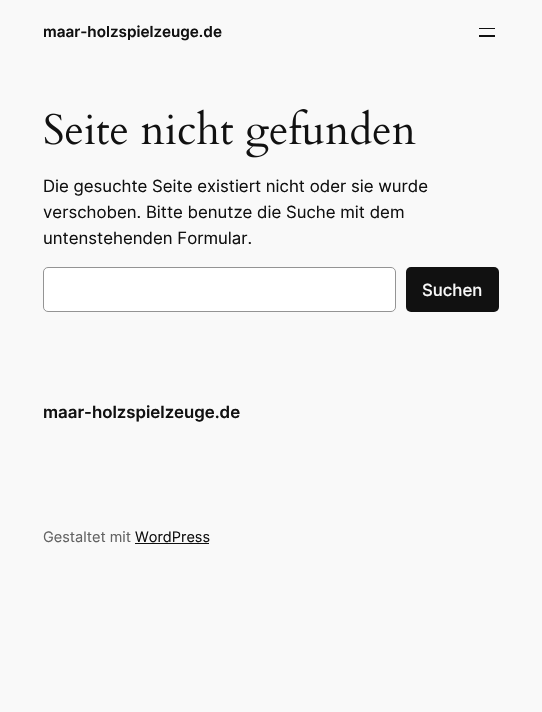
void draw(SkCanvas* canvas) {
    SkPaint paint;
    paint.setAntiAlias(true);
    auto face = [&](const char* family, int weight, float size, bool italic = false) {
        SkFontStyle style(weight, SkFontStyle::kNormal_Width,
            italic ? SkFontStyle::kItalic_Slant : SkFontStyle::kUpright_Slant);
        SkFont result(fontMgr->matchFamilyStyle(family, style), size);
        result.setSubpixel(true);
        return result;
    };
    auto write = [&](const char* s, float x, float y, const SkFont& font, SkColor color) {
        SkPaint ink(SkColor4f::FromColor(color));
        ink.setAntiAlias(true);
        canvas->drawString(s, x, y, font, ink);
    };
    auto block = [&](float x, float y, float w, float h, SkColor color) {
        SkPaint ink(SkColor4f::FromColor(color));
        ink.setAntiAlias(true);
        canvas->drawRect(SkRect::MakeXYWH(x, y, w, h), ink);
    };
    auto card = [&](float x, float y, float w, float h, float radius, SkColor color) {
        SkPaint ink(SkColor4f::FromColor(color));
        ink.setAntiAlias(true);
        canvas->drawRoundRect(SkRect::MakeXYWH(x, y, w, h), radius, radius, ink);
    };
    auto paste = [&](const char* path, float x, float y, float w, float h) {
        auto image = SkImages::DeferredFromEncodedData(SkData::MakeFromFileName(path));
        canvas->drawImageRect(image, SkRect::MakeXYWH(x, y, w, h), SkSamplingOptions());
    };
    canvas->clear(SkColorSetRGB(249, 249, 249));
    auto kFont1 = face("Inter", 600, 15.25f);
    write("maar-holzspielzeuge.de", 43, 37, kFont1, SkColorSetRGB(17, 17, 17));
    block(479, 28, 16, 1, SkColorSetRGB(17, 17, 17));
    block(479, 35, 16, 2, SkColorSetRGB(17, 17, 17));
    paste("pic1.png", 44, 109, 372, 49);
    auto kFont2 = face("Inter", 400, 16.8f);
    write("Die gesuchte Seite existiert nicht oder sie wurde", 43, 192, kFont2, SkColorSetRGB(17, 17, 17));
    write("verschoben. Bitte benutze die Suche mit dem", 43, 218, kFont2, SkColorSetRGB(17, 17, 17));
    write("untenstehenden Formular.", 43, 244, kFont2, SkColorSetRGB(17, 17, 17));
    paint.setColor(SK_ColorWHITE);
    canvas->drawRoundRect(SkRect::MakeXYWH(43.5f, 267.5f, 352, 44), 4.5f, 4.5f, paint);
    paint.setStyle(SkPaint::kStroke_Style);
    paint.setStrokeWidth(1);
    paint.setColor(SkColorSetRGB(148, 148, 148));
    canvas->drawRoundRect(SkRect::MakeXYWH(43.5f, 267.5f, 352, 44), 4.5f, 4.5f, paint);
    card(406, 267, 93, 45, 5, SkColorSetRGB(17, 17, 17));
    auto kFont3 = face("Inter", 500, 16.8f);
    write("Suchen", 422, 296, kFont3, SkColorSetRGB(249, 249, 249));
    auto kFont4 = face("Inter", 600, 16.8f);
    write("maar-holzspielzeuge.de", 43, 418, kFont4, SkColorSetRGB(17, 17, 17));
    auto kFont5 = face("Inter", 400, 14.5f);
    write("Gestaltet mit", 43, 542, kFont5, SkColorSetRGB(99, 99, 99));
    write("WordPress", 135, 542, kFont5, SkColorSetRGB(17, 17, 17));
    block(135, 543, 74, 1, SkColorSetRGB(17, 17, 17));
}
